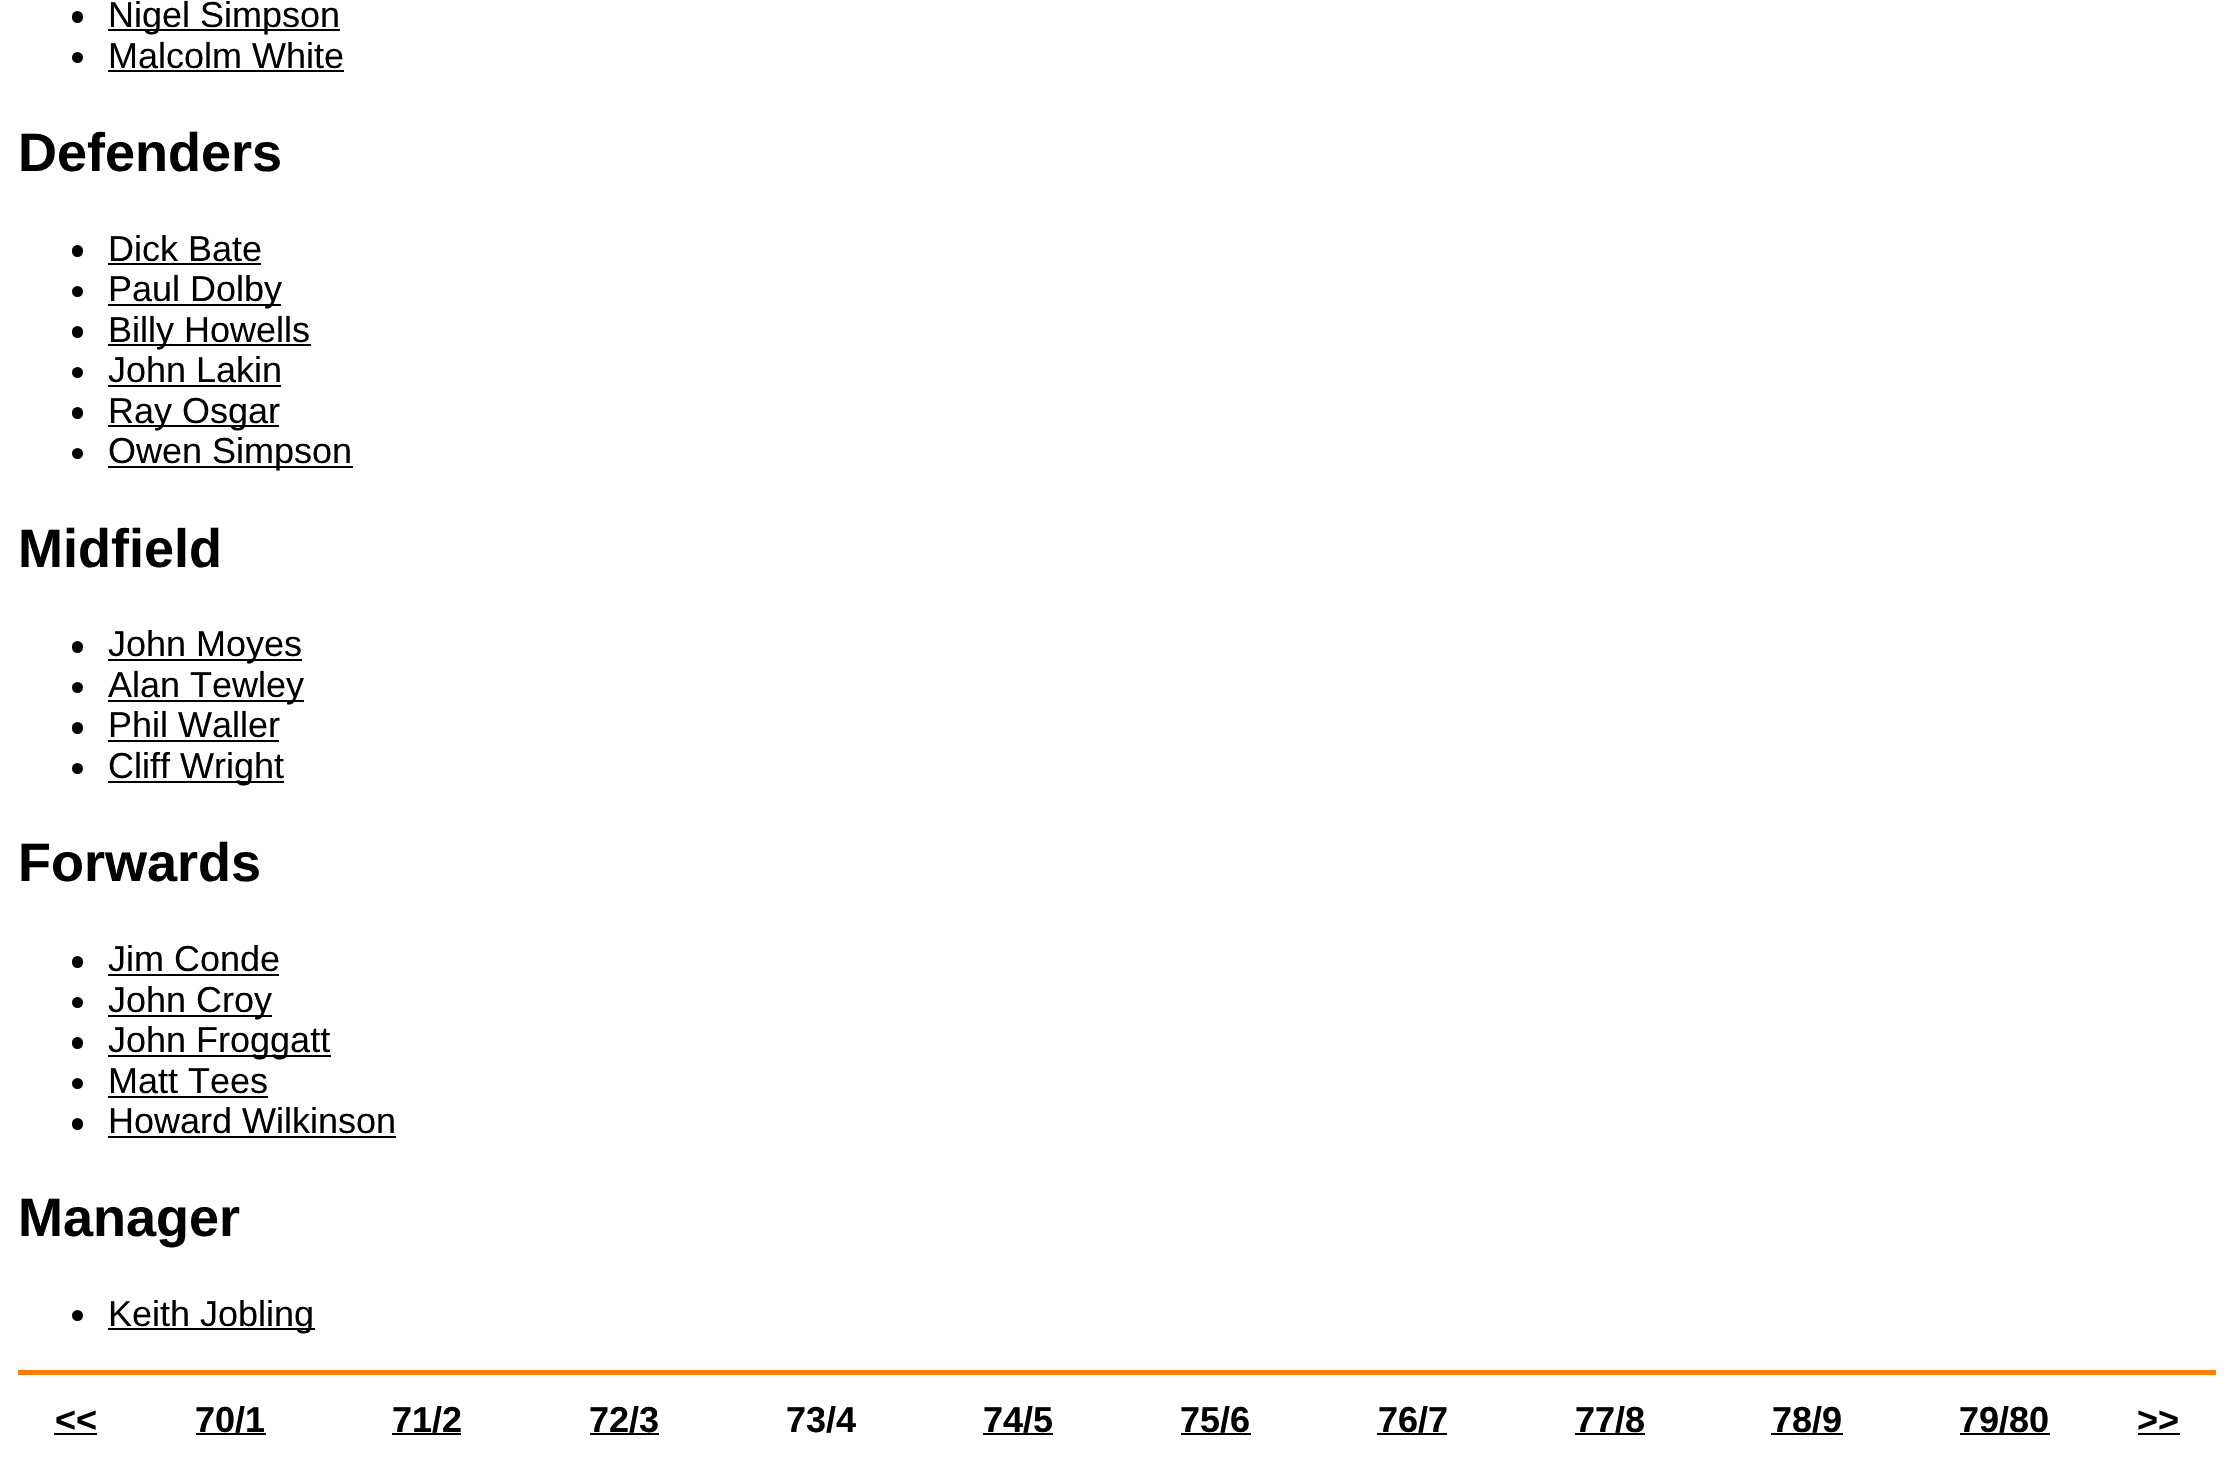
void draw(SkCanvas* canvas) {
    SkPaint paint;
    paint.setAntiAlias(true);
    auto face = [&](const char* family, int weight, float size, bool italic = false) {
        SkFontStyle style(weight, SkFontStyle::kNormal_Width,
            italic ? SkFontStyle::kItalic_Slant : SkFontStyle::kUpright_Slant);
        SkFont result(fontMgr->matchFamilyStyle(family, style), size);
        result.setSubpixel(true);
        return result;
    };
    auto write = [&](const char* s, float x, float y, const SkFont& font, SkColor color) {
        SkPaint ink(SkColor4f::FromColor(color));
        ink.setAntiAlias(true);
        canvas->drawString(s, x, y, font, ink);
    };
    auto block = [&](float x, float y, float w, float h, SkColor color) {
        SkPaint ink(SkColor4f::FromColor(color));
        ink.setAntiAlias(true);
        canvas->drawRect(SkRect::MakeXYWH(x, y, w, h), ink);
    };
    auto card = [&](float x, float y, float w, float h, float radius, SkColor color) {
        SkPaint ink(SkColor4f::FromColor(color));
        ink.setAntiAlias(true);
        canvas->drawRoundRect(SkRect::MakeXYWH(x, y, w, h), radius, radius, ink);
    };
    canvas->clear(SK_ColorWHITE);
    card(72, 11, 11, 12, 5.5f, SK_ColorBLACK);
    block(108, 29, 232, 2, SK_ColorBLACK);
    auto kFont1 = face("Liberation Sans", 400, 36);
    write("Nigel Simpson", 108, 27, kFont1, SK_ColorBLACK);
    paint.setColor(SK_ColorBLACK);
    canvas->drawCircle(77.5f, 57.5f, 5.5f, paint);
    write("Malcolm White", 108, 68, kFont1, SK_ColorBLACK);
    block(108, 70, 236, 2, SK_ColorBLACK);
    auto kFont2 = face("Liberation Sans", 700, 54);
    write("Defenders", 18, 171, kFont2, SK_ColorBLACK);
    card(72, 245, 11, 12, 5.5f, SK_ColorBLACK);
    write("Dick Bate", 108, 261, kFont1, SK_ColorBLACK);
    block(108, 263, 153, 2, SK_ColorBLACK);
    canvas->drawCircle(77.5f, 291.5f, 5.5f, paint);
    block(108, 304, 173, 2, SK_ColorBLACK);
    write("Paul Dolby", 108, 301, kFont1, SK_ColorBLACK);
    card(72, 326, 11, 12, 5.5f, SK_ColorBLACK);
    block(108, 344, 203, 2, SK_ColorBLACK);
    write("Billy Howells", 108, 342, kFont1, SK_ColorBLACK);
    canvas->drawCircle(77.5f, 372.5f, 5.5f, paint);
    write("John Lakin", 108, 382, kFont1, SK_ColorBLACK);
    block(108, 385, 173, 2, SK_ColorBLACK);
    card(72, 407, 11, 12, 5.5f, SK_ColorBLACK);
    block(108, 425, 171, 2, SK_ColorBLACK);
    write("Ray Osgar", 108, 423, kFont1, SK_ColorBLACK);
    canvas->drawCircle(77.5f, 453.5f, 5.5f, paint);
    block(108, 466, 245, 2, SK_ColorBLACK);
    write("Owen Simpson", 108, 463, kFont1, SK_ColorBLACK);
    write("Midfield", 18, 567, kFont2, SK_ColorBLACK);
    card(72, 641, 11, 12, 5.5f, SK_ColorBLACK);
    block(108, 659, 194, 2, SK_ColorBLACK);
    write("John Moyes", 108, 656, kFont1, SK_ColorBLACK);
    canvas->drawCircle(77.5f, 687.5f, 5.5f, paint);
    block(108, 700, 196, 2, SK_ColorBLACK);
    write("Alan Tewley", 108, 697, kFont1, SK_ColorBLACK);
    card(72, 722, 11, 12, 5.5f, SK_ColorBLACK);
    write("Phil Waller", 108, 737, kFont1, SK_ColorBLACK);
    block(108, 740, 171, 2, SK_ColorBLACK);
    canvas->drawCircle(77.5f, 768.5f, 5.5f, paint);
    block(108, 781, 176, 2, SK_ColorBLACK);
    write("Cliff Wright", 108, 778, kFont1, SK_ColorBLACK);
    write("Forwards", 18, 881, kFont2, SK_ColorBLACK);
    card(72, 956, 11, 12, 5.5f, SK_ColorBLACK);
    write("Jim Conde", 108, 971, kFont1, SK_ColorBLACK);
    block(108, 974, 171, 2, SK_ColorBLACK);
    canvas->drawCircle(77.5f, 1002.5f, 5.5f, paint);
    block(108, 1015, 164, 2, SK_ColorBLACK);
    write("John Croy", 108, 1012, kFont1, SK_ColorBLACK);
    card(72, 1037, 11, 12, 5.5f, SK_ColorBLACK);
    block(108, 1055, 223, 2, SK_ColorBLACK);
    write("John Froggatt", 108, 1052, kFont1, SK_ColorBLACK);
    canvas->drawCircle(77.5f, 1083.5f, 5.5f, paint);
    write("Matt Tees", 108, 1093, kFont1, SK_ColorBLACK);
    block(108, 1096, 160, 2, SK_ColorBLACK);
    card(72, 1118, 11, 12, 5.5f, SK_ColorBLACK);
    write("Howard Wilkinson", 108, 1133, kFont1, SK_ColorBLACK);
    block(108, 1136, 288, 2, SK_ColorBLACK);
    write("Manager", 18, 1236, kFont2, SK_ColorBLACK);
    canvas->drawCircle(77.5f, 1315.5f, 5.5f, paint);
    block(108, 1328, 207, 2, SK_ColorBLACK);
    write("Keith Jobling", 108, 1326, kFont1, SK_ColorBLACK);
    block(18, 1370, 2198, 5, SkColorSetRGB(255, 128, 0));
    auto kFont3 = face("Liberation Sans", 700, 36);
    write("<<", 55, 1432, kFont3, SK_ColorBLACK);
    block(54, 1433, 43, 2, SK_ColorBLACK);
    write("70/1", 195, 1432, kFont3, SK_ColorBLACK);
    block(196, 1433, 70, 2, SK_ColorBLACK);
    write("71/2", 392, 1432, kFont3, SK_ColorBLACK);
    block(392, 1433, 69, 2, SK_ColorBLACK);
    write("72/3", 589, 1432, kFont3, SK_ColorBLACK);
    block(590, 1433, 69, 2, SK_ColorBLACK);
    write("73/4", 786, 1432, kFont3, SK_ColorBLACK);
    write("74/5", 983, 1432, kFont3, SK_ColorBLACK);
    block(983, 1433, 70, 2, SK_ColorBLACK);
    write("75/6", 1180, 1432, kFont3, SK_ColorBLACK);
    block(1181, 1433, 70, 2, SK_ColorBLACK);
    write("76/7", 1378, 1432, kFont3, SK_ColorBLACK);
    block(1377, 1433, 70, 2, SK_ColorBLACK);
    write("77/8", 1575, 1432, kFont3, SK_ColorBLACK);
    block(1575, 1433, 70, 2, SK_ColorBLACK);
    write("78/9", 1772, 1432, kFont3, SK_ColorBLACK);
    block(1771, 1433, 72, 2, SK_ColorBLACK);
    write("79/80", 1959, 1432, kFont3, SK_ColorBLACK);
    block(1960, 1433, 90, 2, SK_ColorBLACK);
    write(">>", 2137, 1432, kFont3, SK_ColorBLACK);
    block(2138, 1433, 42, 2, SK_ColorBLACK);
}
